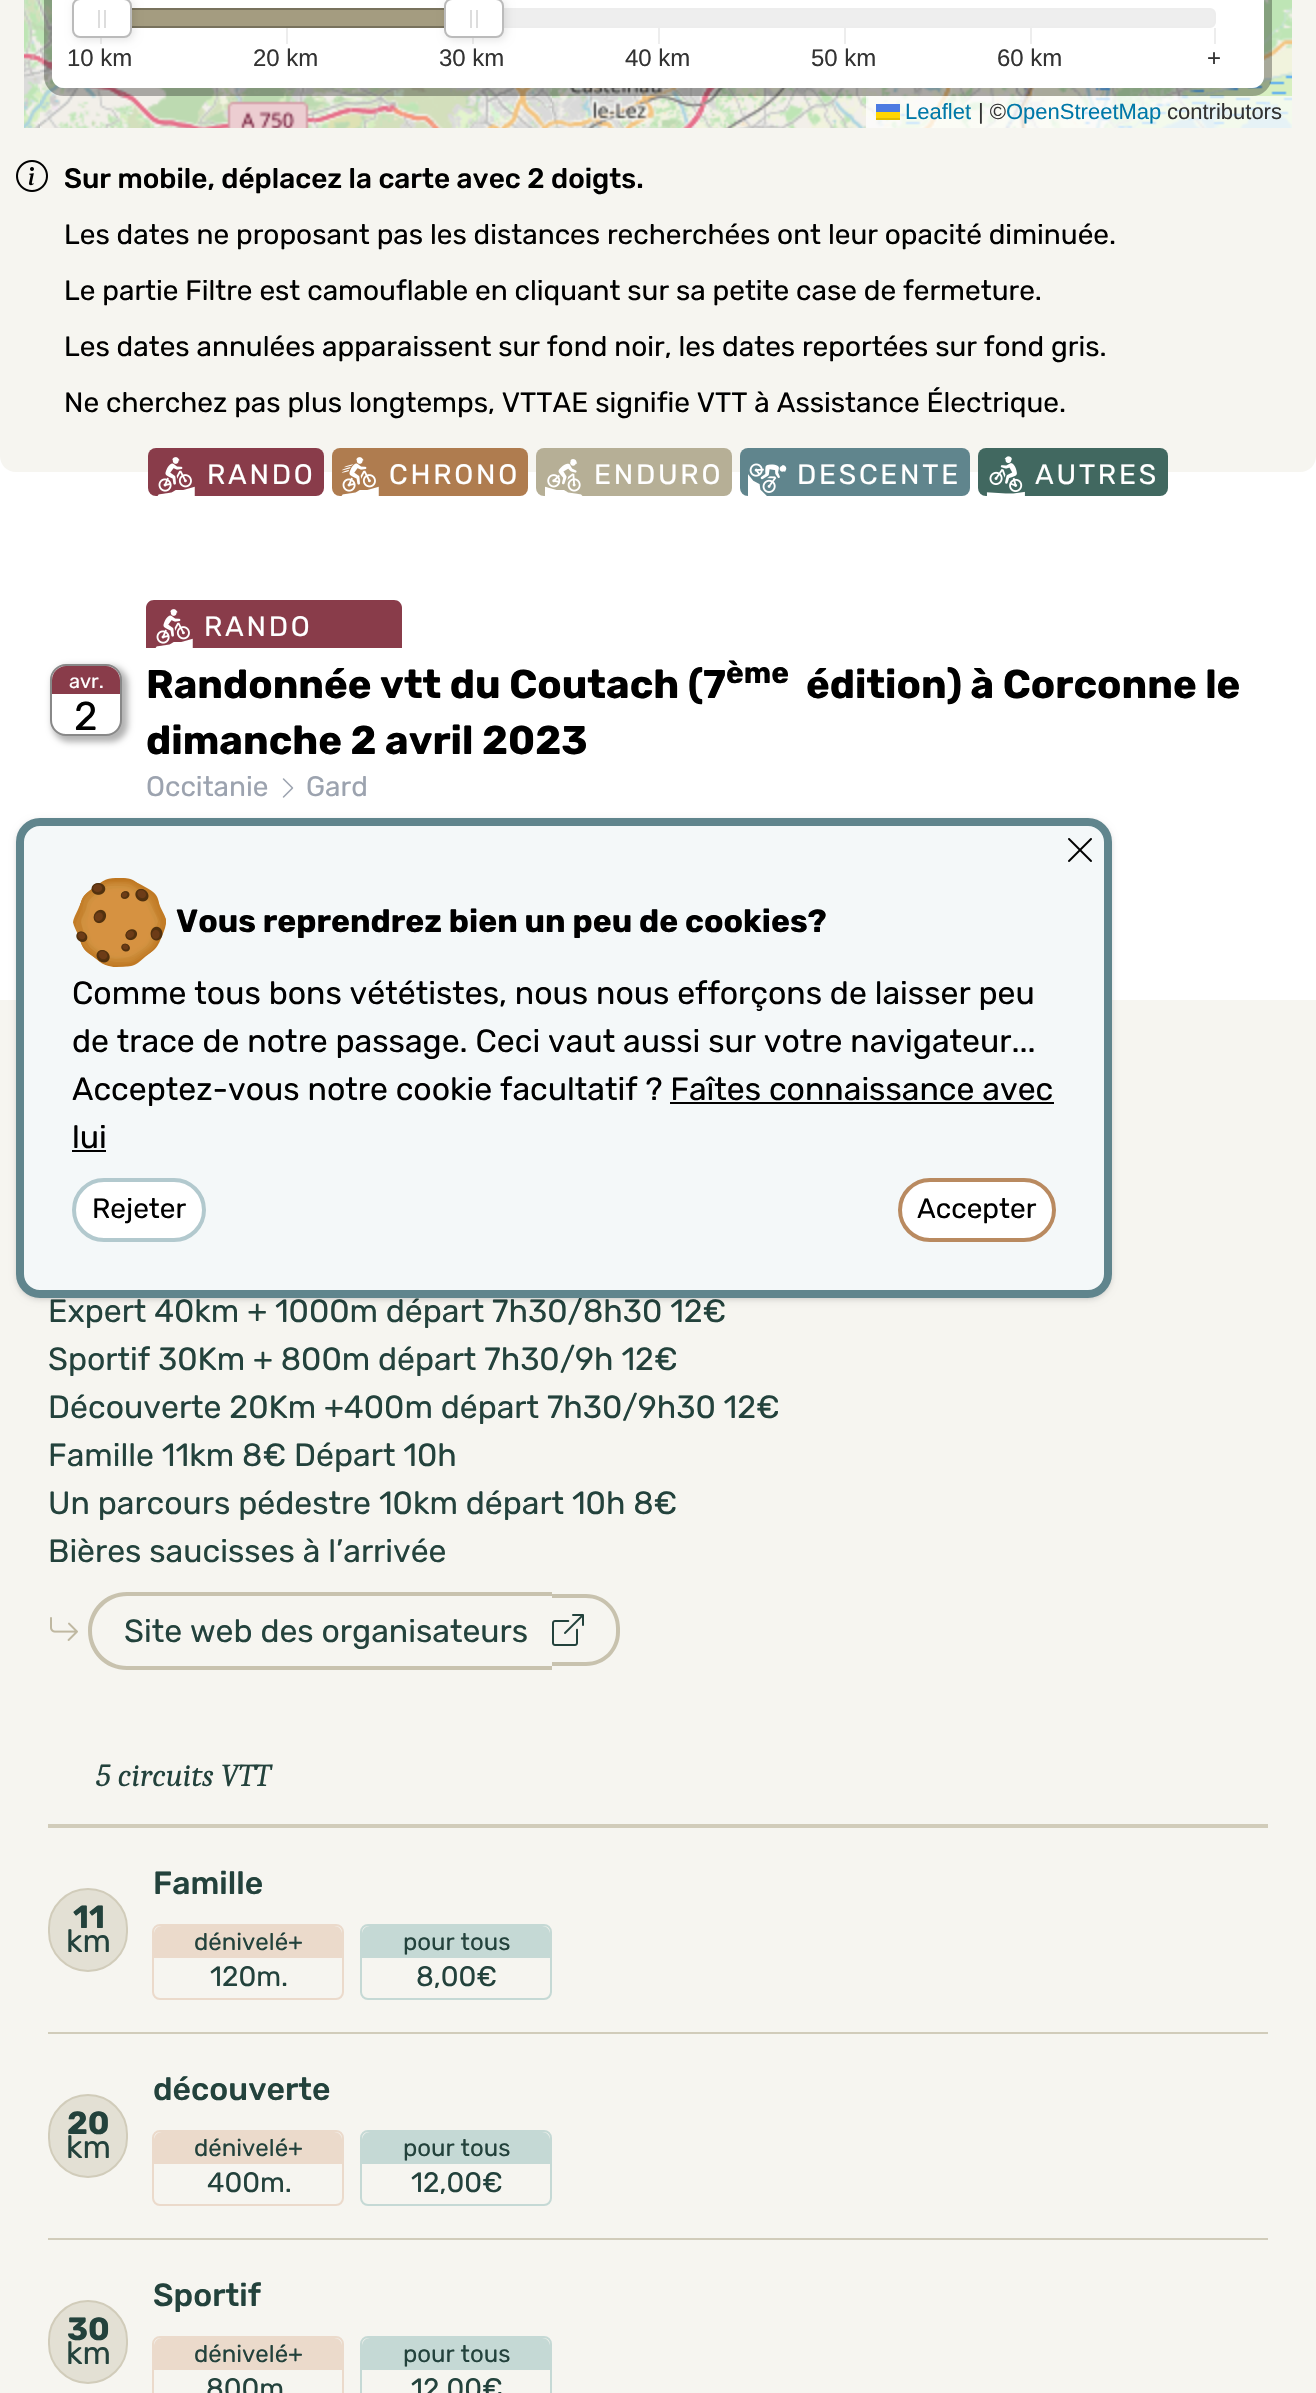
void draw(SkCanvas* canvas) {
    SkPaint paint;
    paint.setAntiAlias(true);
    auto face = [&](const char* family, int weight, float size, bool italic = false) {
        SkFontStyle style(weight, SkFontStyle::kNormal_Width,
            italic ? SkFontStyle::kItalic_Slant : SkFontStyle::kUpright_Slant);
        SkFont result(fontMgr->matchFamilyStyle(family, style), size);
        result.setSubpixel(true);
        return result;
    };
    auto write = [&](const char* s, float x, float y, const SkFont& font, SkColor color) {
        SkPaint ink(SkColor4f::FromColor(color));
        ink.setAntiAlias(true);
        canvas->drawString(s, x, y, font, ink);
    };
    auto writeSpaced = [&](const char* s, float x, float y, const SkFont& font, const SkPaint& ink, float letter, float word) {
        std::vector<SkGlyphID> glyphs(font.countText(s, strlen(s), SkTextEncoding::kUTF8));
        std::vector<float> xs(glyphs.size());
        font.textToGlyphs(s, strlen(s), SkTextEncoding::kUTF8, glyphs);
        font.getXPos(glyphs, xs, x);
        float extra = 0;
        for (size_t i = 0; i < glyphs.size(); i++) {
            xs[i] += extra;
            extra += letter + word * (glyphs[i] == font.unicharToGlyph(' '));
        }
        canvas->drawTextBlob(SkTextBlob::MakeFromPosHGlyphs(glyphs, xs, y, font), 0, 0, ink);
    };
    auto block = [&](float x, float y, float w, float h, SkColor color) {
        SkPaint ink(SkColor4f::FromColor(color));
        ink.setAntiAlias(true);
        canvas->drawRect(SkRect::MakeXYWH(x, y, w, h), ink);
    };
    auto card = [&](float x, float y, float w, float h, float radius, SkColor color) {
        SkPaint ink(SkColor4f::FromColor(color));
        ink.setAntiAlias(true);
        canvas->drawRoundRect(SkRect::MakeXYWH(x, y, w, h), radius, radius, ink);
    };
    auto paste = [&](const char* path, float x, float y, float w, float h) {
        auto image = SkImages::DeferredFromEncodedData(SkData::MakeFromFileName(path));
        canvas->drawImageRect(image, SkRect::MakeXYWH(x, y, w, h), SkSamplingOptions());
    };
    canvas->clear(SK_ColorWHITE);
    block(0, 0, 1316, 128, SkColorSetRGB(246, 245, 240));
    paste("pic1.png", 24, 0, 16, 128);
    paste("pic2.png", 40, 0, 512, 128);
    paste("pic3.png", 552, 88, 512, 40);
    paste("pic4.png", 1064, 0, 228, 128);
    paint.setStyle(SkPaint::kStroke_Style);
    paint.setStrokeWidth(8);
    paint.setColor(SkColorSetARGB(77, 0, 0, 0));
    canvas->drawRoundRect(SkRect::MakeXYWH(48, -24, 1220, 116), 16, 16, paint);
    card(52, -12, 1212, 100, 12, SK_ColorWHITE);
    paint.setStyle(SkPaint::kFill_Style);
    paint.setColor(SkColorSetRGB(238, 238, 238));
    canvas->drawRoundRect(SkRect::MakeXYWH(101, 9, 1114, 18), 5, 5, paint);
    paint.setStyle(SkPaint::kStroke_Style);
    paint.setStrokeWidth(2);
    paint.setColor(SkColorSetRGB(237, 237, 237));
    canvas->drawRoundRect(SkRect::MakeXYWH(101, 9, 1114, 18), 5, 5, paint);
    block(132, 10, 312, 16, SkColorSetRGB(164, 156, 128));
    paint.setColor(SkColorSetRGB(120, 114, 93));
    canvas->drawRect(SkRect::MakeXYWH(101, 9, 370, 18), paint);
    block(100, 38, 2, 6, SkColorSetRGB(237, 237, 237));
    paint.setStyle(SkPaint::kFill_Style);
    paint.setColor(SkColorSetARGB(26, 0, 0, 0));
    paint.setMaskFilter(SkMaskFilter::MakeBlur(kNormal_SkBlurStyle, 4));
    canvas->drawRoundRect(SkRect::MakeXYWH(74, 0, 60, 40), 8, 8, paint);
    paint.setMaskFilter(nullptr);
    paint.setColor(SK_ColorWHITE);
    canvas->drawRoundRect(SkRect::MakeXYWH(73, -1, 58, 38), 7, 7, paint);
    paint.setStyle(SkPaint::kStroke_Style);
    paint.setColor(SkColorSetRGB(187, 187, 187));
    canvas->drawRoundRect(SkRect::MakeXYWH(73, -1, 58, 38), 7, 7, paint);
    block(98, 10, 2, 18, SkColorSetRGB(221, 221, 221));
    block(104, 10, 2, 18, SkColorSetRGB(221, 221, 221));
    block(472, 38, 2, 6, SkColorSetRGB(237, 237, 237));
    paint.setStyle(SkPaint::kFill_Style);
    paint.setColor(SkColorSetARGB(26, 0, 0, 0));
    paint.setMaskFilter(SkMaskFilter::MakeBlur(kNormal_SkBlurStyle, 4));
    canvas->drawRoundRect(SkRect::MakeXYWH(446, 0, 60, 40), 8, 8, paint);
    paint.setMaskFilter(nullptr);
    paint.setColor(SK_ColorWHITE);
    canvas->drawRoundRect(SkRect::MakeXYWH(445, -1, 58, 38), 7, 7, paint);
    paint.setStyle(SkPaint::kStroke_Style);
    paint.setColor(SkColorSetRGB(187, 187, 187));
    canvas->drawRoundRect(SkRect::MakeXYWH(445, -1, 58, 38), 7, 7, paint);
    block(470, 10, 2, 18, SkColorSetRGB(221, 221, 221));
    block(476, 10, 2, 18, SkColorSetRGB(221, 221, 221));
    auto kFont1 = face("Liberation Sans", 400, 24);
    write("10 km", 67, 66, kFont1, SkColorSetRGB(51, 51, 51));
    block(286, 28, 2, 16, SkColorSetRGB(237, 237, 237));
    write("20 km", 253, 66, kFont1, SkColorSetRGB(51, 51, 51));
    write("30 km", 439, 66, kFont1, SkColorSetRGB(51, 51, 51));
    block(658, 28, 2, 16, SkColorSetRGB(237, 237, 237));
    write("40 km", 625, 66, kFont1, SkColorSetRGB(51, 51, 51));
    block(844, 28, 2, 16, SkColorSetRGB(237, 237, 237));
    write("50 km", 811, 66, kFont1, SkColorSetRGB(51, 51, 51));
    block(1030, 28, 2, 16, SkColorSetRGB(237, 237, 237));
    write("60 km", 997, 66, kFont1, SkColorSetRGB(51, 51, 51));
    block(1214, 28, 2, 16, SkColorSetRGB(237, 237, 237));
    write("+", 1207, 66, kFont1, SkColorSetRGB(51, 51, 51));
    block(866, 96, 426, 32, SkColorSetARGB(179, 255, 255, 255));
    auto kFont2 = face("Liberation Sans", 400, 22);
    write("Leaflet", 905, 119, kFont2, SkColorSetRGB(0, 120, 168));
    block(876, 104, 24, 8, SkColorSetRGB(76, 123, 225));
    block(876, 112, 24, 6, SkColorSetRGB(255, 213, 0));
    block(876, 118, 24, 2, SkColorSetRGB(224, 188, 0));
    write("| ©", 978, 119, kFont2, SkColorSetRGB(51, 51, 51));
    write("OpenStreetMap", 1006, 119, kFont2, SkColorSetRGB(0, 120, 168));
    write("contributors", 1167, 119, kFont2, SkColorSetRGB(51, 51, 51));
    paint.setStyle(SkPaint::kFill_Style);
    paint.setColor(SkColorSetRGB(246, 245, 240));
    canvas->drawPath(SkPathBuilder().moveTo(0, 128).lineTo(1316, 128).lineTo(1316, 456).cubicTo(1316, 465, 1309, 472, 1300, 472).lineTo(16, 472).cubicTo(7, 472, 0, 465, 0, 456).close().detach(), paint);
    paste("pic5.png", 16, 160, 32, 32);
    auto kFont3 = face("Rubik", 500, 28);
    write("Sur mobile, déplacez la carte avec 2 doigts.", 64, 188, kFont3, SK_ColorBLACK);
    auto kFont4 = face("Rubik", 400, 28);
    write("Les dates ne proposant pas les distances recherchées ont leur opacité diminuée.", 64, 244, kFont4, SK_ColorBLACK);
    write("Le partie Filtre est camouflable en cliquant sur sa petite case de fermeture.", 64, 300, kFont4, SK_ColorBLACK);
    write("Les dates annulées apparaissent sur fond noir, les dates reportées sur fond gris.", 64, 356, kFont4, SK_ColorBLACK);
    write("Ne cherchez pas plus longtemps, VTTAE signifie VTT à Assistance Électrique.", 64, 412, kFont4, SK_ColorBLACK);
    card(148, 448, 176, 48, 8, SkColorSetRGB(137, 60, 74));
    paste("pic6.png", 157, 457, 38, 39);
    paint.setColor(SK_ColorWHITE);
    writeSpaced("RANDO", 207, 484, kFont4, paint, 2.75f, 0);
    card(332, 448, 196, 48, 8, SkColorSetRGB(175, 124, 79));
    paste("pic7.png", 341, 457, 38, 39);
    writeSpaced("CHRONO", 389, 484, kFont4, paint, 2.75f, 0);
    card(536, 448, 196, 48, 8, SkColorSetRGB(182, 175, 150));
    paste("pic8.png", 545, 459, 38, 37);
    writeSpaced("ENDURO", 594, 484, kFont4, paint, 2.75f, 0);
    card(740, 448, 230, 48, 8, SkColorSetRGB(96, 133, 141));
    paste("pic9.png", 748, 463, 39, 33);
    writeSpaced("DESCENTE", 797, 484, kFont4, paint, 2.75f, 0);
    card(978, 448, 190, 48, 8, SkColorSetRGB(65, 104, 96));
    paste("pic10.png", 986, 456, 39, 40);
    writeSpaced("AUTRES", 1035, 484, kFont4, paint, 2.75f, 0);
    paint.setColor(SkColorSetARGB(77, 0, 0, 0));
    paint.setMaskFilter(SkMaskFilter::MakeBlur(kNormal_SkBlurStyle, 3));
    canvas->drawRoundRect(SkRect::MakeXYWH(52, 666, 76, 76), 18, 18, paint);
    paint.setMaskFilter(nullptr);
    paint.setColor(SK_ColorWHITE);
    canvas->drawRoundRect(SkRect::MakeXYWH(51, 665, 70, 70), 15, 15, paint);
    paint.setStyle(SkPaint::kStroke_Style);
    paint.setColor(SkColorSetRGB(136, 136, 136));
    canvas->drawRoundRect(SkRect::MakeXYWH(51, 665, 70, 70), 15, 15, paint);
    paint.setStyle(SkPaint::kFill_Style);
    paint.setColor(SkColorSetRGB(137, 60, 74));
    canvas->drawPath(SkPathBuilder().moveTo(66, 666).lineTo(106, 666).cubicTo(113.5f, 666, 120, 672.5f, 120, 680).lineTo(120, 694).lineTo(52, 694).lineTo(52, 680).cubicTo(52, 672.5f, 58.5f, 666, 66, 666).close().detach(), paint);
    auto kFont5 = face("Rubik", 400, 20);
    write("avr.", 69, 688, kFont5, SK_ColorWHITE);
    auto kFont6 = face("Rubik", 400, 40);
    write("2", 74, 730, kFont6, SK_ColorBLACK);
    canvas->drawPath(SkPathBuilder().moveTo(154, 600).lineTo(394, 600).cubicTo(398.5f, 600, 402, 603.5f, 402, 608).lineTo(402, 648).lineTo(146, 648).lineTo(146, 608).cubicTo(146, 603.5f, 149.5f, 600, 154, 600).close().detach(), paint);
    paste("pic6.png", 155, 609, 38, 39);
    paint.setColor(SK_ColorWHITE);
    writeSpaced("RANDO", 204, 636, kFont4, paint, 2.75f, 0);
    auto kFont7 = face("Rubik", 700, 40);
    write("Randonnée vtt du Coutach (7", 146, 698, kFont7, SK_ColorBLACK);
    auto kFont8 = face("Rubik", 700, 30);
    write("ème", 726, 683, kFont8, SK_ColorBLACK);
    write("édition) à Corconne le", 806, 698, kFont7, SK_ColorBLACK);
    write("dimanche 2 avril 2023", 146, 754, kFont7, SK_ColorBLACK);
    write("Occitanie", 146, 796, kFont4, SkColorSetRGB(156, 163, 175));
    paste("pic11.png", 282, 778, 12, 20);
    write("Gard", 306, 796, kFont4, SkColorSetRGB(156, 163, 175));
    block(0, 1000, 1316, 1393, SkColorSetRGB(246, 245, 240));
    auto kFont9 = face("Rubik", 400, 32);
    write("Expert 40km + 1000m départ 7h30/8h30 12€", 48, 1322, kFont9, SkColorSetRGB(35, 66, 60));
    write("Sportif 30Km + 800m départ 7h30/9h 12€", 48, 1370, kFont9, SkColorSetRGB(35, 66, 60));
    write("Découverte 20Km +400m départ 7h30/9h30 12€", 48, 1418, kFont9, SkColorSetRGB(35, 66, 60));
    write("Famille 11km 8€ Départ 10h", 48, 1466, kFont9, SkColorSetRGB(35, 66, 60));
    write("Un parcours pédestre 10km départ 10h 8€", 48, 1514, kFont9, SkColorSetRGB(35, 66, 60));
    write("Bières saucisses à l’arrivée", 48, 1562, kFont9, SkColorSetRGB(35, 66, 60));
    paste("pic12.png", 50, 1617, 28, 24);
    paint.setColor(SkColorSetRGB(200, 194, 174));
    canvas->drawPath(SkPathBuilder(SkPathFillType::kEvenOdd).moveTo(127, 1592).lineTo(552, 1592).lineTo(552, 1670).lineTo(127, 1670).cubicTo(105, 1670, 88, 1653, 88, 1631).cubicTo(88, 1609, 105, 1592, 127, 1592).close().moveTo(127, 1596).lineTo(552, 1596).lineTo(552, 1666).lineTo(127, 1666).cubicTo(108, 1666, 92, 1650, 92, 1631).cubicTo(92, 1612, 108, 1596, 127, 1596).close().detach(), paint);
    write("Site web des organisateurs", 124, 1642, kFont9, SkColorSetRGB(35, 66, 60));
    canvas->drawPath(SkPathBuilder(SkPathFillType::kEvenOdd).moveTo(552, 1594).lineTo(586, 1594).cubicTo(605, 1594, 620, 1609, 620, 1628).lineTo(620, 1632).cubicTo(620, 1651, 605, 1666, 586, 1666).lineTo(552, 1666).close().moveTo(552, 1598).lineTo(586, 1598).cubicTo(603, 1598, 616, 1611, 616, 1628).lineTo(616, 1632).cubicTo(616, 1649, 603, 1662, 586, 1662).lineTo(552, 1662).close().detach(), paint);
    paste("pic13.png", 552, 1614, 32, 32);
    auto kFont10 = face("Caladea", 400, 32, true);
    write("5 circuits VTT", 96, 1786, kFont10, SkColorSetRGB(35, 66, 60));
    block(48, 1824, 1220, 4, SkColorSetRGB(209, 204, 186));
    paint.setColor(SkColorSetRGB(227, 224, 212));
    canvas->drawRoundRect(SkRect::MakeXYWH(49, 1889, 78, 82), 39, 39, paint);
    paint.setStyle(SkPaint::kStroke_Style);
    paint.setColor(SkColorSetRGB(209, 204, 186));
    canvas->drawRoundRect(SkRect::MakeXYWH(49, 1889, 78, 82), 39, 39, paint);
    auto kFont11 = face("Rubik", 700, 32);
    write("11", 73, 1928, kFont11, SkColorSetRGB(35, 66, 60));
    write("km", 66, 1952, kFont9, SkColorSetRGB(35, 66, 60));
    auto kFont12 = face("Rubik", 500, 32);
    write("Famille", 153, 1894, kFont12, SkColorSetRGB(35, 66, 60));
    paint.setColor(SkColorSetRGB(235, 218, 203));
    canvas->drawRoundRect(SkRect::MakeXYWH(153, 1925, 190, 74), 7, 7, paint);
    paint.setStyle(SkPaint::kFill_Style);
    canvas->drawPath(SkPathBuilder().moveTo(162, 1926).lineTo(334, 1926).cubicTo(338.5f, 1926, 342, 1929.5f, 342, 1934).lineTo(342, 1958).lineTo(154, 1958).lineTo(154, 1934).cubicTo(154, 1929.5f, 157.5f, 1926, 162, 1926).close().detach(), paint);
    auto kFont13 = face("Rubik", 400, 24);
    write("dénivelé+", 194, 1950, kFont13, SkColorSetRGB(35, 66, 60));
    write("120m.", 210, 1986, kFont4, SkColorSetRGB(35, 66, 60));
    paint.setStyle(SkPaint::kStroke_Style);
    paint.setColor(SkColorSetRGB(197, 217, 213));
    canvas->drawRoundRect(SkRect::MakeXYWH(361, 1925, 190, 74), 7, 7, paint);
    paint.setStyle(SkPaint::kFill_Style);
    canvas->drawPath(SkPathBuilder().moveTo(370, 1926).lineTo(542, 1926).cubicTo(546.5f, 1926, 550, 1929.5f, 550, 1934).lineTo(550, 1958).lineTo(362, 1958).lineTo(362, 1934).cubicTo(362, 1929.5f, 365.5f, 1926, 370, 1926).close().detach(), paint);
    write("pour tous", 403, 1950, kFont13, SkColorSetRGB(35, 66, 60));
    write("8,00€", 416, 1986, kFont4, SkColorSetRGB(35, 66, 60));
    block(48, 2032, 1220, 2, SkColorSetRGB(209, 204, 186));
    paint.setColor(SkColorSetRGB(227, 224, 212));
    canvas->drawRoundRect(SkRect::MakeXYWH(49, 2095, 78, 82), 39, 39, paint);
    paint.setStyle(SkPaint::kStroke_Style);
    paint.setColor(SkColorSetRGB(209, 204, 186));
    canvas->drawRoundRect(SkRect::MakeXYWH(49, 2095, 78, 82), 39, 39, paint);
    write("20", 67, 2134, kFont11, SkColorSetRGB(35, 66, 60));
    write("km", 66, 2158, kFont9, SkColorSetRGB(35, 66, 60));
    write("découverte", 153, 2100, kFont12, SkColorSetRGB(35, 66, 60));
    paint.setColor(SkColorSetRGB(235, 218, 203));
    canvas->drawRoundRect(SkRect::MakeXYWH(153, 2131, 190, 74), 7, 7, paint);
    paint.setStyle(SkPaint::kFill_Style);
    canvas->drawPath(SkPathBuilder().moveTo(162, 2132).lineTo(334, 2132).cubicTo(338.5f, 2132, 342, 2135.5f, 342, 2140).lineTo(342, 2164).lineTo(154, 2164).lineTo(154, 2140).cubicTo(154, 2135.5f, 157.5f, 2132, 162, 2132).close().detach(), paint);
    write("dénivelé+", 194, 2156, kFont13, SkColorSetRGB(35, 66, 60));
    write("400m.", 207, 2192, kFont4, SkColorSetRGB(35, 66, 60));
    paint.setStyle(SkPaint::kStroke_Style);
    paint.setColor(SkColorSetRGB(197, 217, 213));
    canvas->drawRoundRect(SkRect::MakeXYWH(361, 2131, 190, 74), 7, 7, paint);
    paint.setStyle(SkPaint::kFill_Style);
    canvas->drawPath(SkPathBuilder().moveTo(370, 2132).lineTo(542, 2132).cubicTo(546.5f, 2132, 550, 2135.5f, 550, 2140).lineTo(550, 2164).lineTo(362, 2164).lineTo(362, 2140).cubicTo(362, 2135.5f, 365.5f, 2132, 370, 2132).close().detach(), paint);
    write("pour tous", 403, 2156, kFont13, SkColorSetRGB(35, 66, 60));
    write("12,00€", 411, 2192, kFont4, SkColorSetRGB(35, 66, 60));
    block(48, 2238, 1220, 2, SkColorSetRGB(209, 204, 186));
    paint.setColor(SkColorSetRGB(227, 224, 212));
    canvas->drawRoundRect(SkRect::MakeXYWH(49, 2301, 78, 82), 39, 39, paint);
    paint.setStyle(SkPaint::kStroke_Style);
    paint.setColor(SkColorSetRGB(209, 204, 186));
    canvas->drawRoundRect(SkRect::MakeXYWH(49, 2301, 78, 82), 39, 39, paint);
    write("30", 67, 2340, kFont11, SkColorSetRGB(35, 66, 60));
    write("km", 66, 2364, kFont9, SkColorSetRGB(35, 66, 60));
    write("Sportif", 153, 2306, kFont12, SkColorSetRGB(35, 66, 60));
    paint.setColor(SkColorSetRGB(235, 218, 203));
    canvas->drawRoundRect(SkRect::MakeXYWH(153, 2337, 190, 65), 7, 7, paint);
    paint.setStyle(SkPaint::kFill_Style);
    canvas->drawPath(SkPathBuilder().moveTo(162, 2338).lineTo(334, 2338).cubicTo(338.5f, 2338, 342, 2341.5f, 342, 2346).lineTo(342, 2370).lineTo(154, 2370).lineTo(154, 2346).cubicTo(154, 2341.5f, 157.5f, 2338, 162, 2338).close().detach(), paint);
    write("dénivelé+", 194, 2362, kFont13, SkColorSetRGB(35, 66, 60));
    write("800m", 206, 2398, kFont4, SkColorSetRGB(35, 66, 60));
    paint.setStyle(SkPaint::kStroke_Style);
    paint.setColor(SkColorSetRGB(197, 217, 213));
    canvas->drawRoundRect(SkRect::MakeXYWH(361, 2337, 190, 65), 7, 7, paint);
    paint.setStyle(SkPaint::kFill_Style);
    canvas->drawPath(SkPathBuilder().moveTo(370, 2338).lineTo(542, 2338).cubicTo(546.5f, 2338, 550, 2341.5f, 550, 2346).lineTo(550, 2370).lineTo(362, 2370).lineTo(362, 2346).cubicTo(362, 2341.5f, 365.5f, 2338, 370, 2338).close().detach(), paint);
    write("pour tous", 403, 2362, kFont13, SkColorSetRGB(35, 66, 60));
    write("12,00€", 411, 2398, kFont4, SkColorSetRGB(35, 66, 60));
    paint.setColor(SkColorSetARGB(26, 0, 0, 0));
    paint.setMaskFilter(SkMaskFilter::MakeBlur(kNormal_SkBlurStyle, 2));
    canvas->drawRoundRect(SkRect::MakeXYWH(18, 822, 1092, 476), 22, 22, paint);
    paint.setMaskFilter(nullptr);
    paint.setMaskFilter(SkMaskFilter::MakeBlur(kNormal_SkBlurStyle, 3));
    canvas->drawRoundRect(SkRect::MakeXYWH(16, 820, 1096, 480), 24, 24, paint);
    paint.setMaskFilter(nullptr);
    paint.setColor(SkColorSetRGB(244, 248, 249));
    canvas->drawRoundRect(SkRect::MakeXYWH(20, 822, 1088, 472), 20, 20, paint);
    paint.setStyle(SkPaint::kStroke_Style);
    paint.setStrokeWidth(8);
    paint.setColor(SkColorSetRGB(96, 133, 141));
    canvas->drawRoundRect(SkRect::MakeXYWH(20, 822, 1088, 472), 20, 20, paint);
    paste("pic14.png", 1068, 838, 24, 24);
    paste("pic15.png", 73, 878, 93, 89);
    write("Vous reprendrez bien un peu de cookies?", 176, 932, kFont11, SK_ColorBLACK);
    write("Comme tous bons vététistes, nous nous efforçons de laisser peu", 72, 1004, kFont9, SK_ColorBLACK);
    write("de trace de notre passage. Ceci vaut aussi sur votre navigateur...", 72, 1052, kFont9, SK_ColorBLACK);
    write("Acceptez-vous notre cookie facultatif ? Faîtes connaissance avec", 72, 1100, kFont9, SK_ColorBLACK);
    write("lui", 72, 1148, kFont9, SK_ColorBLACK);
    block(670, 1102, 384, 2, SK_ColorBLACK);
    block(72, 1150, 34, 2, SK_ColorBLACK);
    paint.setStyle(SkPaint::kFill_Style);
    paint.setColor(SK_ColorWHITE);
    canvas->drawRoundRect(SkRect::MakeXYWH(74, 1180, 130, 60), 30, 30, paint);
    paint.setStyle(SkPaint::kStroke_Style);
    paint.setStrokeWidth(4);
    paint.setColor(SkColorSetRGB(178, 201, 206));
    canvas->drawRoundRect(SkRect::MakeXYWH(74, 1180, 130, 60), 30, 30, paint);
    write("Rejeter", 92, 1218, kFont4, SK_ColorBLACK);
    paint.setStyle(SkPaint::kFill_Style);
    paint.setColor(SK_ColorWHITE);
    canvas->drawRoundRect(SkRect::MakeXYWH(900, 1180, 154, 60), 30, 30, paint);
    paint.setStyle(SkPaint::kStroke_Style);
    paint.setColor(SkColorSetRGB(185, 138, 96));
    canvas->drawRoundRect(SkRect::MakeXYWH(900, 1180, 154, 60), 30, 30, paint);
    write("Accepter", 917, 1218, kFont4, SK_ColorBLACK);
}
